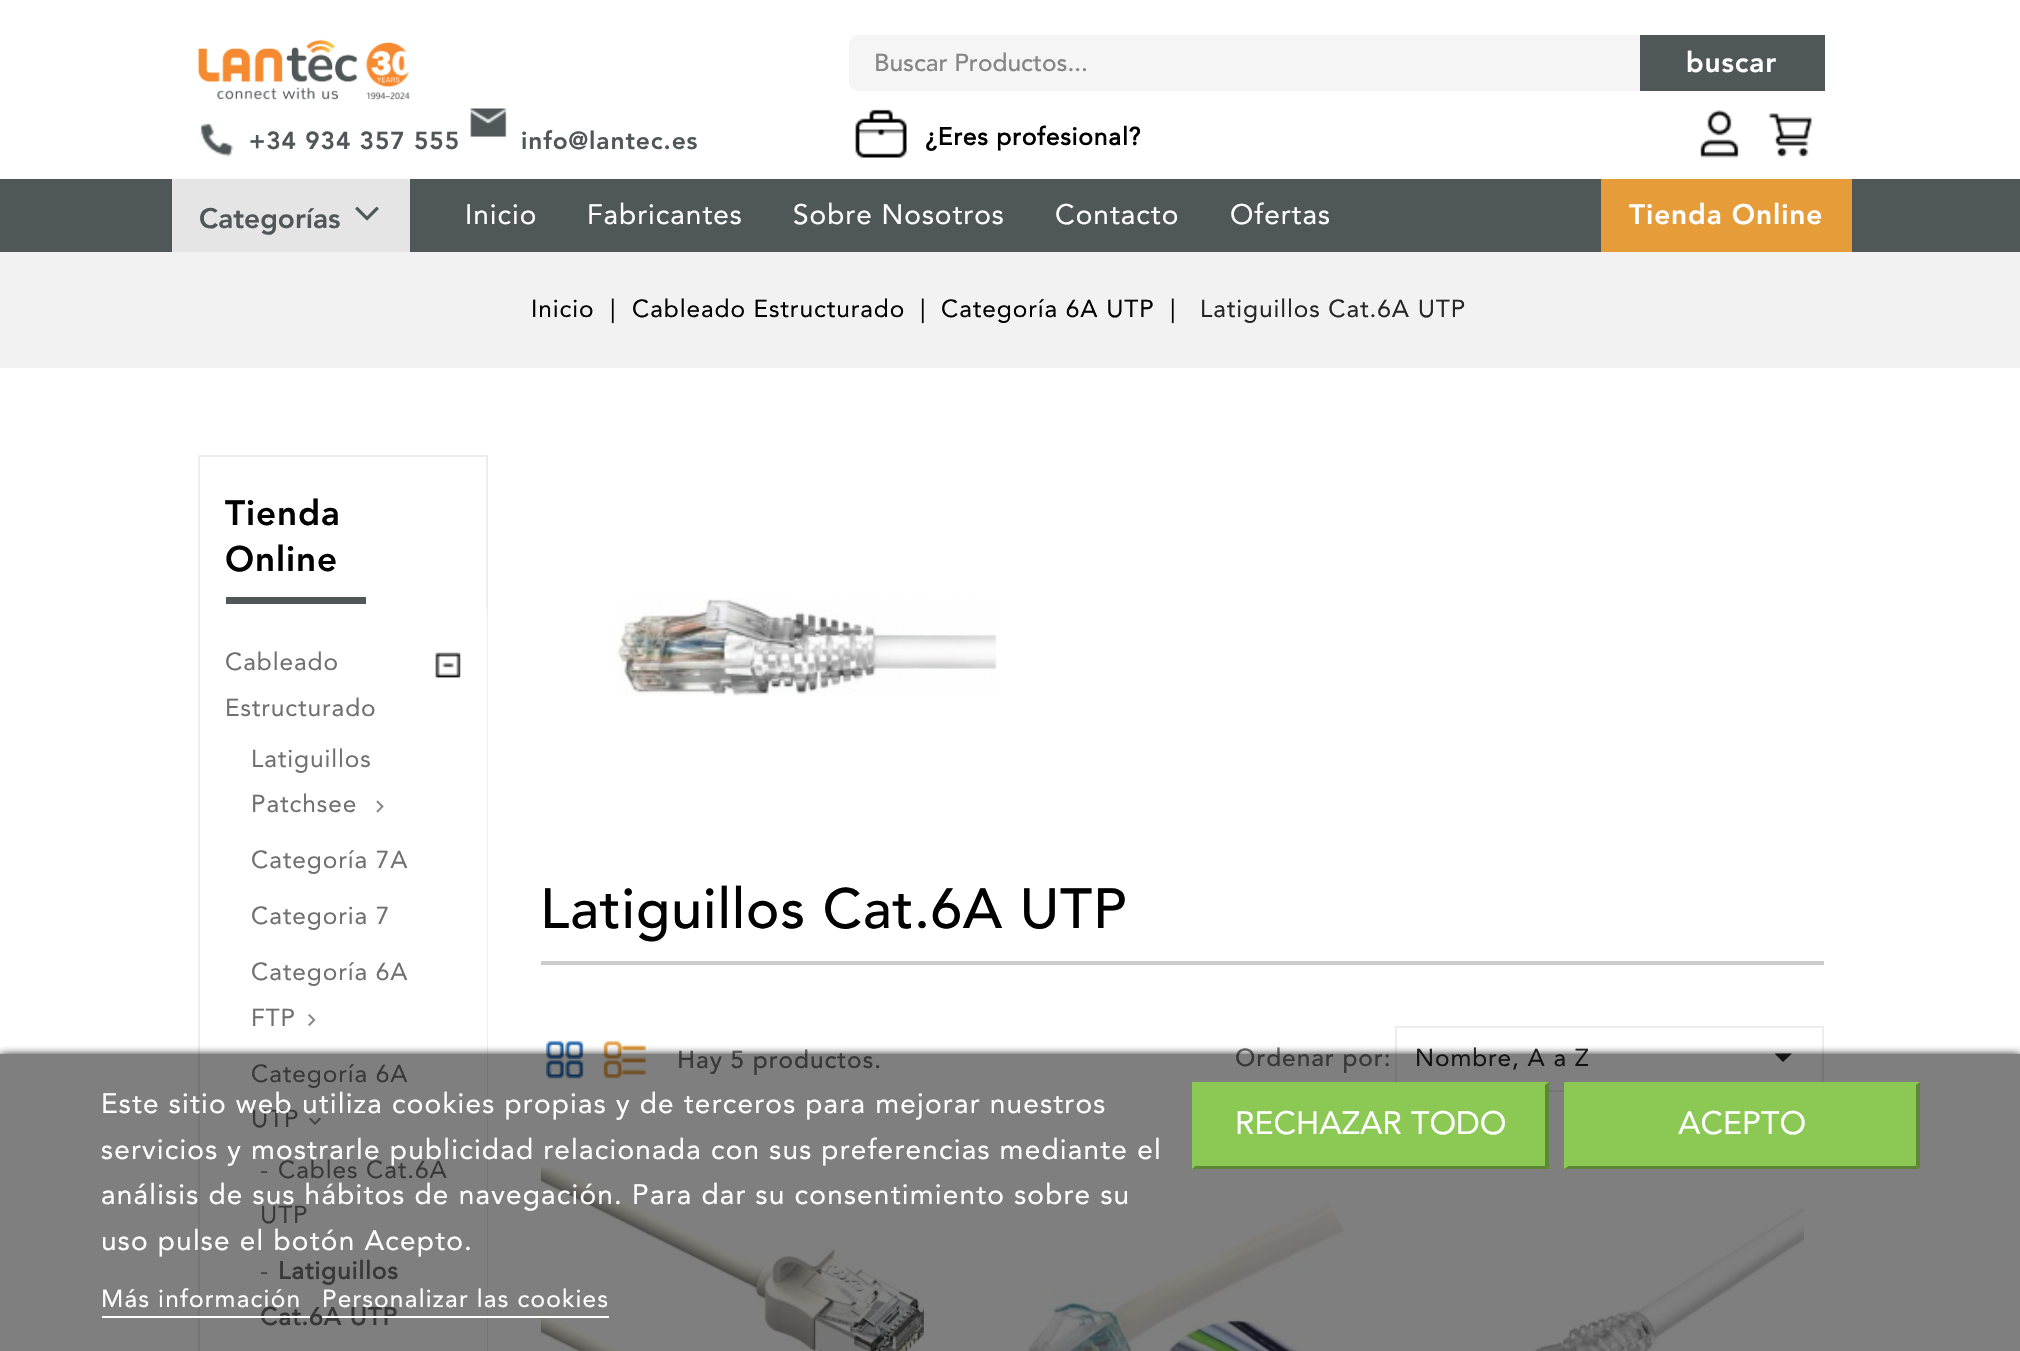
void draw(SkCanvas* canvas) {
    SkPaint paint;
    paint.setAntiAlias(true);
    auto face = [&](const char* family, int weight, float size, bool italic = false) {
        SkFontStyle style(weight, SkFontStyle::kNormal_Width,
            italic ? SkFontStyle::kItalic_Slant : SkFontStyle::kUpright_Slant);
        SkFont result(fontMgr->matchFamilyStyle(family, style), size);
        result.setSubpixel(true);
        return result;
    };
    auto write = [&](const char* s, float x, float y, const SkFont& font, SkColor color) {
        SkPaint ink(SkColor4f::FromColor(color));
        ink.setAntiAlias(true);
        canvas->drawString(s, x, y, font, ink);
    };
    auto writeSpaced = [&](const char* s, float x, float y, const SkFont& font, const SkPaint& ink, float letter, float word) {
        std::vector<SkGlyphID> glyphs(font.countText(s, strlen(s), SkTextEncoding::kUTF8));
        std::vector<float> xs(glyphs.size());
        font.textToGlyphs(s, strlen(s), SkTextEncoding::kUTF8, glyphs);
        font.getXPos(glyphs, xs, x);
        float extra = 0;
        for (size_t i = 0; i < glyphs.size(); i++) {
            xs[i] += extra;
            extra += letter + word * (glyphs[i] == font.unicharToGlyph(' '));
        }
        canvas->drawTextBlob(SkTextBlob::MakeFromPosHGlyphs(glyphs, xs, y, font), 0, 0, ink);
    };
    auto block = [&](float x, float y, float w, float h, SkColor color) {
        SkPaint ink(SkColor4f::FromColor(color));
        ink.setAntiAlias(true);
        canvas->drawRect(SkRect::MakeXYWH(x, y, w, h), ink);
    };
    auto card = [&](float x, float y, float w, float h, float radius, SkColor color) {
        SkPaint ink(SkColor4f::FromColor(color));
        ink.setAntiAlias(true);
        canvas->drawRoundRect(SkRect::MakeXYWH(x, y, w, h), radius, radius, ink);
    };
    auto paste = [&](const char* path, float x, float y, float w, float h) {
        auto image = SkImages::DeferredFromEncodedData(SkData::MakeFromFileName(path));
        canvas->drawImageRect(image, SkRect::MakeXYWH(x, y, w, h), SkSamplingOptions());
    };
    canvas->clear(SK_ColorWHITE);
    paste("pic1.png", 200, 123, 34, 34);
    auto kFont1 = face("Avenir", 900, 24.5f);
    paint.setColor(SkColorSetRGB(80, 87, 89));
    writeSpaced("+34 934 357 555", 249, 149, kFont1, paint, 0.9f, 0);
    paste("pic2.png", 470, 108, 37, 29);
    writeSpaced("info@lantec.es", 521, 149, kFont1, paint, 0.9f, 0);
    paste("pic3.png", 197, 39, 213, 61);
    card(849, 35, 976, 56, 9, SkColorSetRGB(245, 245, 245));
    auto kFont2 = face("Avenir", 500, 24.5f);
    write("Buscar Productos...", 874, 71, kFont2, SkColorSetRGB(134, 134, 134));
    block(1640, 35, 185, 56, SkColorSetRGB(80, 87, 89));
    auto kFont3 = face("Avenir", 900, 28);
    paint.setColor(SK_ColorWHITE);
    writeSpaced("buscar", 1686, 72, kFont3, paint, 0.9f, 0);
    paste("pic4.png", 855, 109, 52, 49);
    auto kFont4 = face("Avenir", 700, 24.5f);
    paint.setColor(SK_ColorBLACK);
    writeSpaced("¿Eres profesional?", 925, 145, kFont4, paint, 0.9f, 0);
    paste("pic5.png", 1700, 110, 39, 48);
    paste("pic6.png", 1768, 113, 45, 44);
    block(0, 179, 2020, 73, SkColorSetRGB(80, 87, 89));
    block(172, 179, 238, 73, SkColorSetRGB(229, 229, 229));
    write("Categorías", 199, 228, kFont3, SkColorSetRGB(80, 87, 89));
    paste("pic7.png", 355, 206, 24, 15);
    auto kFont5 = face("Avenir", 400, 28);
    paint.setColor(SK_ColorWHITE);
    writeSpaced("Inicio", 465, 224, kFont5, paint, 1, 0);
    writeSpaced("Fabricantes", 587, 224, kFont5, paint, 1, 0);
    writeSpaced("Sobre Nosotros", 793, 224, kFont5, paint, 1, 0);
    writeSpaced("Contacto", 1055, 224, kFont5, paint, 1, 0);
    writeSpaced("Ofertas", 1230, 224, kFont5, paint, 1, 0);
    block(1601, 179, 251, 73, SkColorSetRGB(229, 156, 57));
    writeSpaced("Tienda Online", 1629, 224, kFont3, paint, 0.9f, 0);
    block(0, 252, 2020, 116, SkColorSetRGB(242, 242, 242));
    auto kFont6 = face("Avenir", 400, 24.5f);
    paint.setColor(SK_ColorBLACK);
    writeSpaced("Inicio", 531, 317, kFont6, paint, 0.9f, 0);
    writeSpaced("|", 610, 317, kFont6, paint, 0.9f, 0);
    writeSpaced("Cableado Estructurado", 632, 317, kFont6, paint, 0.9f, 0);
    writeSpaced("|", 920, 317, kFont6, paint, 0.9f, 0);
    writeSpaced("Categoría 6A UTP", 941, 317, kFont6, paint, 0.9f, 0);
    writeSpaced("|", 1170, 317, kFont6, paint, 0.9f, 0);
    paint.setColor(SkColorSetRGB(38, 38, 38));
    writeSpaced("Latiguillos Cat.6A UTP", 1200, 317, kFont6, paint, 0.9f, 0);
    paint.setStyle(SkPaint::kStroke_Style);
    paint.setStrokeWidth(2);
    paint.setColor(SkColorSetRGB(237, 237, 237));
    canvas->drawRect(SkRect::MakeXYWH(199, 456, 288, 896), paint);
    auto kFont7 = face("Avenir", 900, 35);
    paint.setStyle(SkPaint::kFill_Style);
    paint.setColor(SK_ColorBLACK);
    writeSpaced("Tienda", 225, 525, kFont7, paint, 0.9f, 0);
    writeSpaced("Online", 225, 571, kFont7, paint, 0.9f, 0);
    block(226, 597, 140, 7, SkColorSetRGB(80, 87, 89));
    block(486, 609, 1, 742, SK_ColorWHITE);
    paint.setColor(SkColorSetRGB(112, 112, 112));
    writeSpaced("Cableado", 225, 670, kFont6, paint, 0.9f, 0);
    writeSpaced("Estructurado", 225, 716, kFont6, paint, 0.9f, 0);
    paste("pic8.png", 435, 652, 26, 26);
    writeSpaced("Latiguillos", 251, 767, kFont6, paint, 0.9f, 0);
    writeSpaced("Patchsee", 251, 812, kFont6, paint, 0.9f, 0);
    paste("pic9.png", 376, 800, 8, 13);
    writeSpaced("Categoría 7A", 251, 868, kFont6, paint, 0.9f, 0);
    writeSpaced("Categoria 7", 251, 924, kFont6, paint, 0.9f, 0);
    writeSpaced("Categoría 6A", 251, 980, kFont6, paint, 0.9f, 0);
    writeSpaced("FTP", 251, 1026, kFont6, paint, 0.9f, 0);
    paste("pic10.png", 308, 1014, 8, 12);
    writeSpaced("Categoría 6A", 251, 1082, kFont6, paint, 0.9f, 0);
    writeSpaced("UTP", 251, 1127, kFont6, paint, 0.9f, 0);
    paste("pic11.png", 309, 1117, 12, 8);
    paint.setColor(SkColorSetRGB(134, 134, 134));
    writeSpaced("-", 260, 1178, kFont6, paint, 0.9f, 0);
    paint.setColor(SkColorSetRGB(112, 112, 112));
    writeSpaced("Cables Cat.6A", 278, 1178, kFont6, paint, 0.9f, 0);
    writeSpaced("UTP", 260, 1223, kFont6, paint, 0.9f, 0);
    paint.setColor(SkColorSetRGB(134, 134, 134));
    writeSpaced("-", 260, 1279, kFont6, paint, 0.9f, 0);
    paint.setColor(SkColorSetRGB(112, 112, 112));
    writeSpaced("Latiguillos", 278, 1279, kFont4, paint, 0.9f, 0);
    writeSpaced("Cat.6A UTP", 260, 1325, kFont4, paint, 0.9f, 0);
    paste("pic12.png", 615, 598, 382, 98);
    block(541, 961, 1283, 4, SkColorSetRGB(204, 204, 204));
    auto kFont8 = face("Avenir", 500, 56);
    paint.setColor(SK_ColorBLACK);
    writeSpaced("Latiguillos Cat.6A UTP", 540, 928, kFont8, paint, 0.9f, 0);
    paste("pic13.png", 546, 1040, 38, 39);
    paste("pic14.png", 603, 1040, 43, 39);
    paint.setColor(SkColorSetRGB(112, 112, 112));
    writeSpaced("Hay 5 productos.", 677, 1068, kFont2, paint, 0.9f, 0);
    writeSpaced("Ordenar por:", 1235, 1066, kFont2, paint, 0.9f, 0);
    paint.setStyle(SkPaint::kStroke_Style);
    paint.setColor(SkColorSetRGB(237, 237, 237));
    canvas->drawRect(SkRect::MakeXYWH(1396, 1027, 427, 64), paint);
    paint.setStyle(SkPaint::kFill_Style);
    paint.setColor(SkColorSetRGB(38, 38, 38));
    writeSpaced("Nombre, A a Z", 1415, 1066, kFont6, paint, 0.9f, 0);
    canvas->drawPath(SkPathBuilder().moveTo(1774.5f, 1053.5f).lineTo(1792, 1053.5f).lineTo(1783, 1062).close().detach(), paint);
    paste("pic15.png", 540, 1166, 384, 185);
    paste("pic16.png", 1027, 1205, 318, 146);
    paste("pic17.png", 1533, 1208, 271, 143);
    canvas->save();
    canvas->clipRect(SkRect::MakeXYWH(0, 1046, 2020, 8));
    paint.setColor(SK_ColorBLACK);
    paint.setMaskFilter(SkMaskFilter::MakeBlur(kNormal_SkBlurStyle, 4.5f));
    canvas->drawRect(SkRect::MakeXYWH(0, 1055, 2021, 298), paint);
    paint.setMaskFilter(nullptr);
    canvas->restore();
    block(0, 1054, 2020, 297, SkColorSetARGB(128, 0, 0, 0));
    paint.setColor(SK_ColorWHITE);
    writeSpaced("Este sitio web utiliza cookies propias y de terceros para mejorar nuestros", 101, 1113, kFont5, paint, 1.22f, 0);
    writeSpaced("servicios y mostrarle publicidad relacionada con sus preferencias mediante el", 101, 1159, kFont5, paint, 1.22f, 0);
    writeSpaced("análisis de sus hábitos de navegación. Para dar su consentimiento sobre su", 101, 1204, kFont5, paint, 1.22f, 0);
    writeSpaced("uso pulse el botón Acepto.", 101, 1250, kFont5, paint, 1.22f, 0);
    writeSpaced("Más información", 101, 1307, kFont6, paint, 1.22f, 0);
    block(102, 1316, 208, 2, SK_ColorWHITE);
    writeSpaced("Personalizar las cookies", 322, 1307, kFont6, paint, 1.22f, 0);
    block(322, 1316, 287, 2, SK_ColorWHITE);
    block(1192, 1082, 357, 87, SkColorSetRGB(139, 201, 84));
    paint.setColor(SkColorSetRGB(93, 134, 56));
    canvas->drawPath(SkPathBuilder().moveTo(1549, 1082).lineTo(1549, 1169).lineTo(1545, 1166).lineTo(1545, 1085).close().detach(), paint);
    canvas->drawPath(SkPathBuilder().moveTo(1549, 1169).lineTo(1192, 1169).lineTo(1195, 1166).lineTo(1545, 1166).close().detach(), paint);
    paint.setColor(SkColorSetRGB(139, 201, 84));
    canvas->drawPath(SkPathBuilder().moveTo(1192, 1169).lineTo(1192, 1082).lineTo(1195, 1085).lineTo(1195, 1166).close().detach(), paint);
    auto kFont9 = face("Avenir", 400, 32);
    write("RECHAZAR TODO", 1235, 1134, kFont9, SK_ColorWHITE);
    block(1565, 1082, 355, 87, SkColorSetRGB(139, 201, 84));
    canvas->drawPath(SkPathBuilder().moveTo(1564, 1082).lineTo(1920, 1082).lineTo(1916, 1085).lineTo(1568, 1085).close().detach(), paint);
    paint.setColor(SkColorSetRGB(93, 134, 56));
    canvas->drawPath(SkPathBuilder().moveTo(1920, 1082).lineTo(1920, 1169).lineTo(1916, 1166).lineTo(1916, 1085).close().detach(), paint);
    canvas->drawPath(SkPathBuilder().moveTo(1920, 1169).lineTo(1564, 1169).lineTo(1568, 1166).lineTo(1916, 1166).close().detach(), paint);
    paint.setColor(SkColorSetRGB(139, 201, 84));
    canvas->drawPath(SkPathBuilder().moveTo(1564, 1169).lineTo(1564, 1082).lineTo(1568, 1085).lineTo(1568, 1166).close().detach(), paint);
    write("ACEPTO", 1678, 1134, kFont9, SK_ColorWHITE);
}
